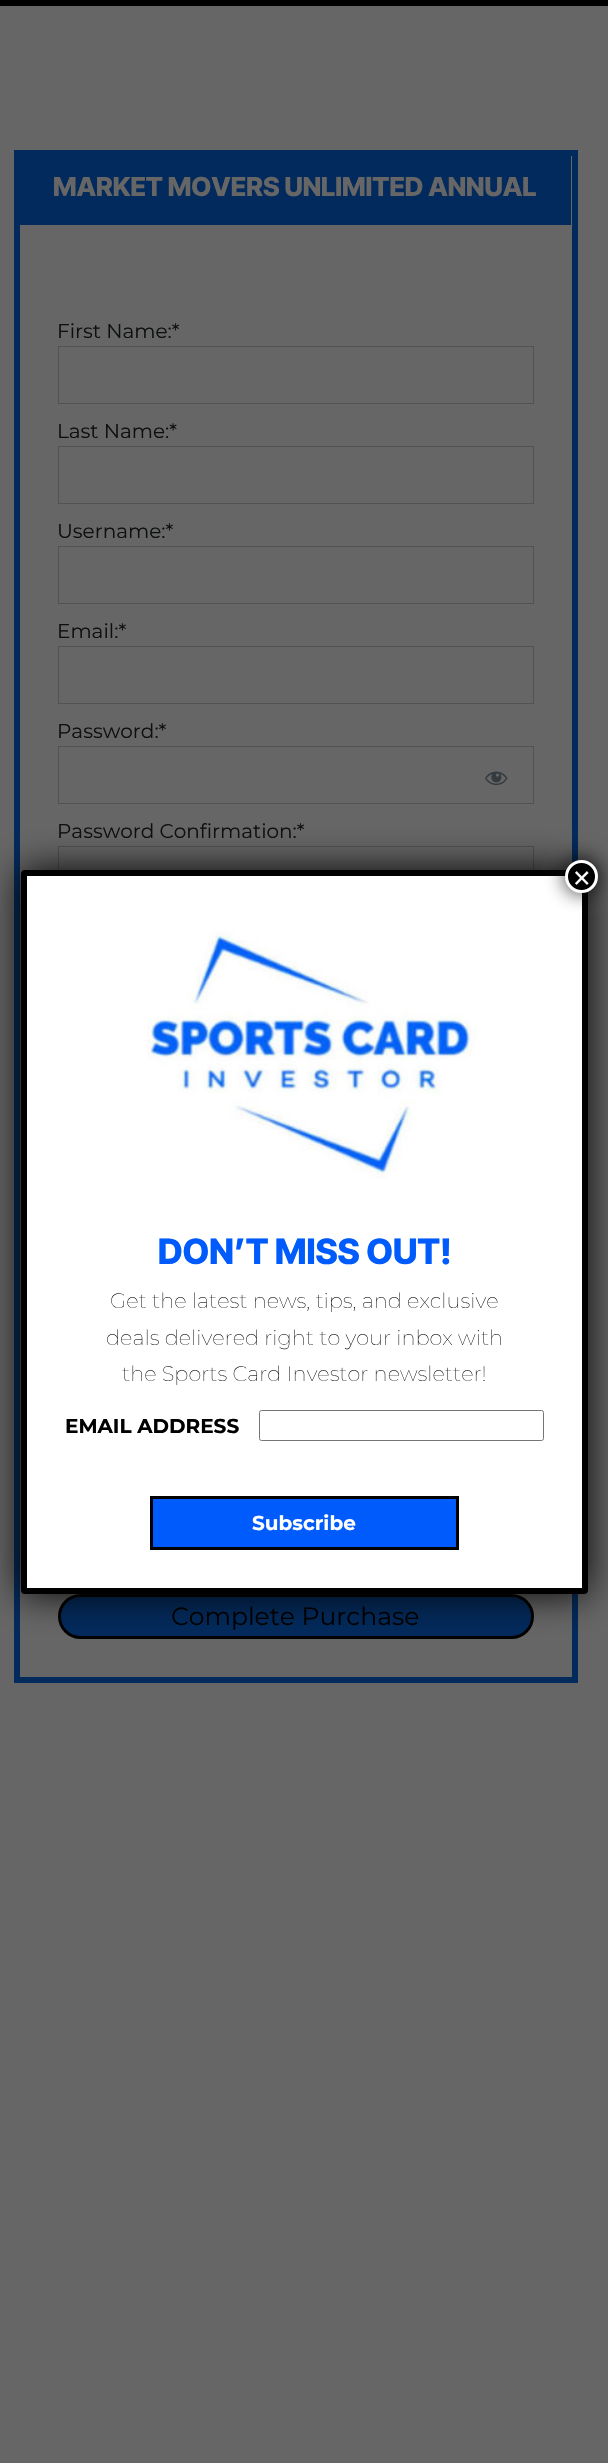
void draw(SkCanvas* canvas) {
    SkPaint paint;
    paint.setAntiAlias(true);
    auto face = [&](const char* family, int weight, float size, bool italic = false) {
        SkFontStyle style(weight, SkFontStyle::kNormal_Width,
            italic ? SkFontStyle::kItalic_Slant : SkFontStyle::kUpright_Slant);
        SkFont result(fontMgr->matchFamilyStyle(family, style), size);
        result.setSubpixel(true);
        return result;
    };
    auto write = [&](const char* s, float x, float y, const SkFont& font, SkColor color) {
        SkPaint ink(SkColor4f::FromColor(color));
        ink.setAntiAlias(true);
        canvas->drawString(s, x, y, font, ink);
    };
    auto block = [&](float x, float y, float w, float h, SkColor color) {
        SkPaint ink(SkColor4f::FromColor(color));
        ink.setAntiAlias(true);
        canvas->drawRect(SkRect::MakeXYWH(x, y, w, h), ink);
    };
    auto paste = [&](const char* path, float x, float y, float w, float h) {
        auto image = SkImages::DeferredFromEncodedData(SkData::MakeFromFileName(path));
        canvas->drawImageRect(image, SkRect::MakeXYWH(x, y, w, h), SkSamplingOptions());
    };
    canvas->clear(SkColorSetRGB(102, 102, 102));
    block(0, 0, 608, 6, SK_ColorBLACK);
    paint.setStyle(SkPaint::kStroke_Style);
    paint.setStrokeWidth(6);
    paint.setColor(SkColorSetRGB(3, 42, 92));
    canvas->drawRect(SkRect::MakeXYWH(17, 153, 558, 1527), paint);
    block(20, 156, 551, 69, SkColorSetRGB(3, 42, 92));
    auto kFont1 = face("Inter Tight", 800, 26.25f);
    write("MARKET MOVERS UNLIMITED ANNUAL", 53, 196, kFont1, SkColorSetRGB(102, 102, 102));
    auto kFont2 = face("Montserrat", 400, 20);
    write("First Name:*", 57, 338, kFont2, SkColorSetRGB(13, 15, 16));
    paint.setStrokeWidth(1);
    paint.setColor(SkColorSetRGB(82, 82, 82));
    canvas->drawRect(SkRect::MakeXYWH(58.5f, 346.5f, 475, 57), paint);
    write("Last Name:*", 57, 438, kFont2, SkColorSetRGB(13, 15, 16));
    canvas->drawRect(SkRect::MakeXYWH(58.5f, 446.5f, 475, 57), paint);
    write("Username:*", 57, 538, kFont2, SkColorSetRGB(13, 15, 16));
    canvas->drawRect(SkRect::MakeXYWH(58.5f, 546.5f, 475, 57), paint);
    write("Email:*", 57, 638, kFont2, SkColorSetRGB(13, 15, 16));
    canvas->drawRect(SkRect::MakeXYWH(58.5f, 646.5f, 475, 57), paint);
    write("Password:*", 57, 738, kFont2, SkColorSetRGB(13, 15, 16));
    canvas->drawRect(SkRect::MakeXYWH(58.5f, 746.5f, 475, 57), paint);
    paste("pic1.png", 485, 771, 23, 15);
    write("Password Confirmation:*", 57, 838, kFont2, SkColorSetRGB(13, 15, 16));
    canvas->drawRect(SkRect::MakeXYWH(58.5f, 846.5f, 475, 57), paint);
    paint.setStyle(SkPaint::kFill_Style);
    paint.setColor(SkColorSetRGB(3, 42, 92));
    canvas->drawRoundRect(SkRect::MakeXYWH(59.5f, 1595.5f, 473, 42), 21, 21, paint);
    paint.setStyle(SkPaint::kStroke_Style);
    paint.setStrokeWidth(3);
    paint.setColor(SK_ColorBLACK);
    canvas->drawRoundRect(SkRect::MakeXYWH(59.5f, 1595.5f, 473, 42), 21, 21, paint);
    auto kFont3 = face("Montserrat", 400, 25);
    write("Complete Purchase", 171, 1625, kFont3, SK_ColorBLACK);
    paint.setStyle(SkPaint::kFill_Style);
    paint.setColor(SkColorSetRGB(2, 2, 2));
    paint.setMaskFilter(SkMaskFilter::MakeBlur(kNormal_SkBlurStyle, 19));
    canvas->drawRoundRect(SkRect::MakeXYWH(21, 870, 567, 724), 4, 4, paint);
    paint.setMaskFilter(nullptr);
    paint.setColor(SK_ColorWHITE);
    canvas->drawRoundRect(SkRect::MakeXYWH(24, 873, 561, 718), 1, 1, paint);
    paint.setStyle(SkPaint::kStroke_Style);
    paint.setStrokeWidth(6);
    paint.setColor(SK_ColorBLACK);
    canvas->drawRoundRect(SkRect::MakeXYWH(24, 873, 561, 718), 1, 1, paint);
    paint.setStyle(SkPaint::kFill_Style);
    paint.setColor(SkColorSetARGB(191, 2, 2, 2));
    paint.setMaskFilter(SkMaskFilter::MakeBlur(kNormal_SkBlurStyle, 9.5f));
    canvas->drawRoundRect(SkRect::MakeXYWH(564, 859, 35, 35), 17.5f, 17.5f, paint);
    paint.setMaskFilter(nullptr);
    paint.setColor(SK_ColorBLACK);
    canvas->drawCircle(581.5f, 876.5f, 15, paint);
    paint.setStyle(SkPaint::kStroke_Style);
    paint.setStrokeWidth(3);
    paint.setColor(SK_ColorWHITE);
    canvas->drawCircle(581.5f, 876.5f, 15, paint);
    auto kFont4 = face("Liberation Sans", 400, 30);
    write("×", 573, 888, kFont4, SK_ColorWHITE);
    paste("pic2.png", 147, 930, 329, 250);
    auto kFont5 = face("Inter Tight", 800, 35);
    write("DON’T MISS OUT!", 158, 1264, kFont5, SkColorSetRGB(0, 91, 252));
    auto kFont6 = face("Montserrat", 100, 21);
    write("Get the latest news, tips, and exclusive", 110, 1308, kFont6, SK_ColorBLACK);
    write("deals delivered right to your inbox with", 106, 1345, kFont6, SK_ColorBLACK);
    write("the Sports Card Investor newsletter!", 122, 1381, kFont6, SK_ColorBLACK);
    auto kFont7 = face("Montserrat", 700, 20);
    write("EMAIL ADDRESS", 65, 1433, kFont7, SK_ColorBLACK);
    paint.setStrokeWidth(1);
    paint.setColor(SkColorSetRGB(118, 118, 118));
    canvas->drawRoundRect(SkRect::MakeXYWH(259.5f, 1410.5f, 284, 30), 2, 2, paint);
    paint.setStyle(SkPaint::kFill_Style);
    paint.setColor(SkColorSetRGB(0, 91, 252));
    canvas->drawRect(SkRect::MakeXYWH(151.5f, 1497.5f, 306, 51), paint);
    paint.setStyle(SkPaint::kStroke_Style);
    paint.setStrokeWidth(3);
    paint.setColor(SK_ColorBLACK);
    canvas->drawRect(SkRect::MakeXYWH(151.5f, 1497.5f, 306, 51), paint);
    write("Subscribe", 252, 1530, kFont7, SK_ColorWHITE);
}
